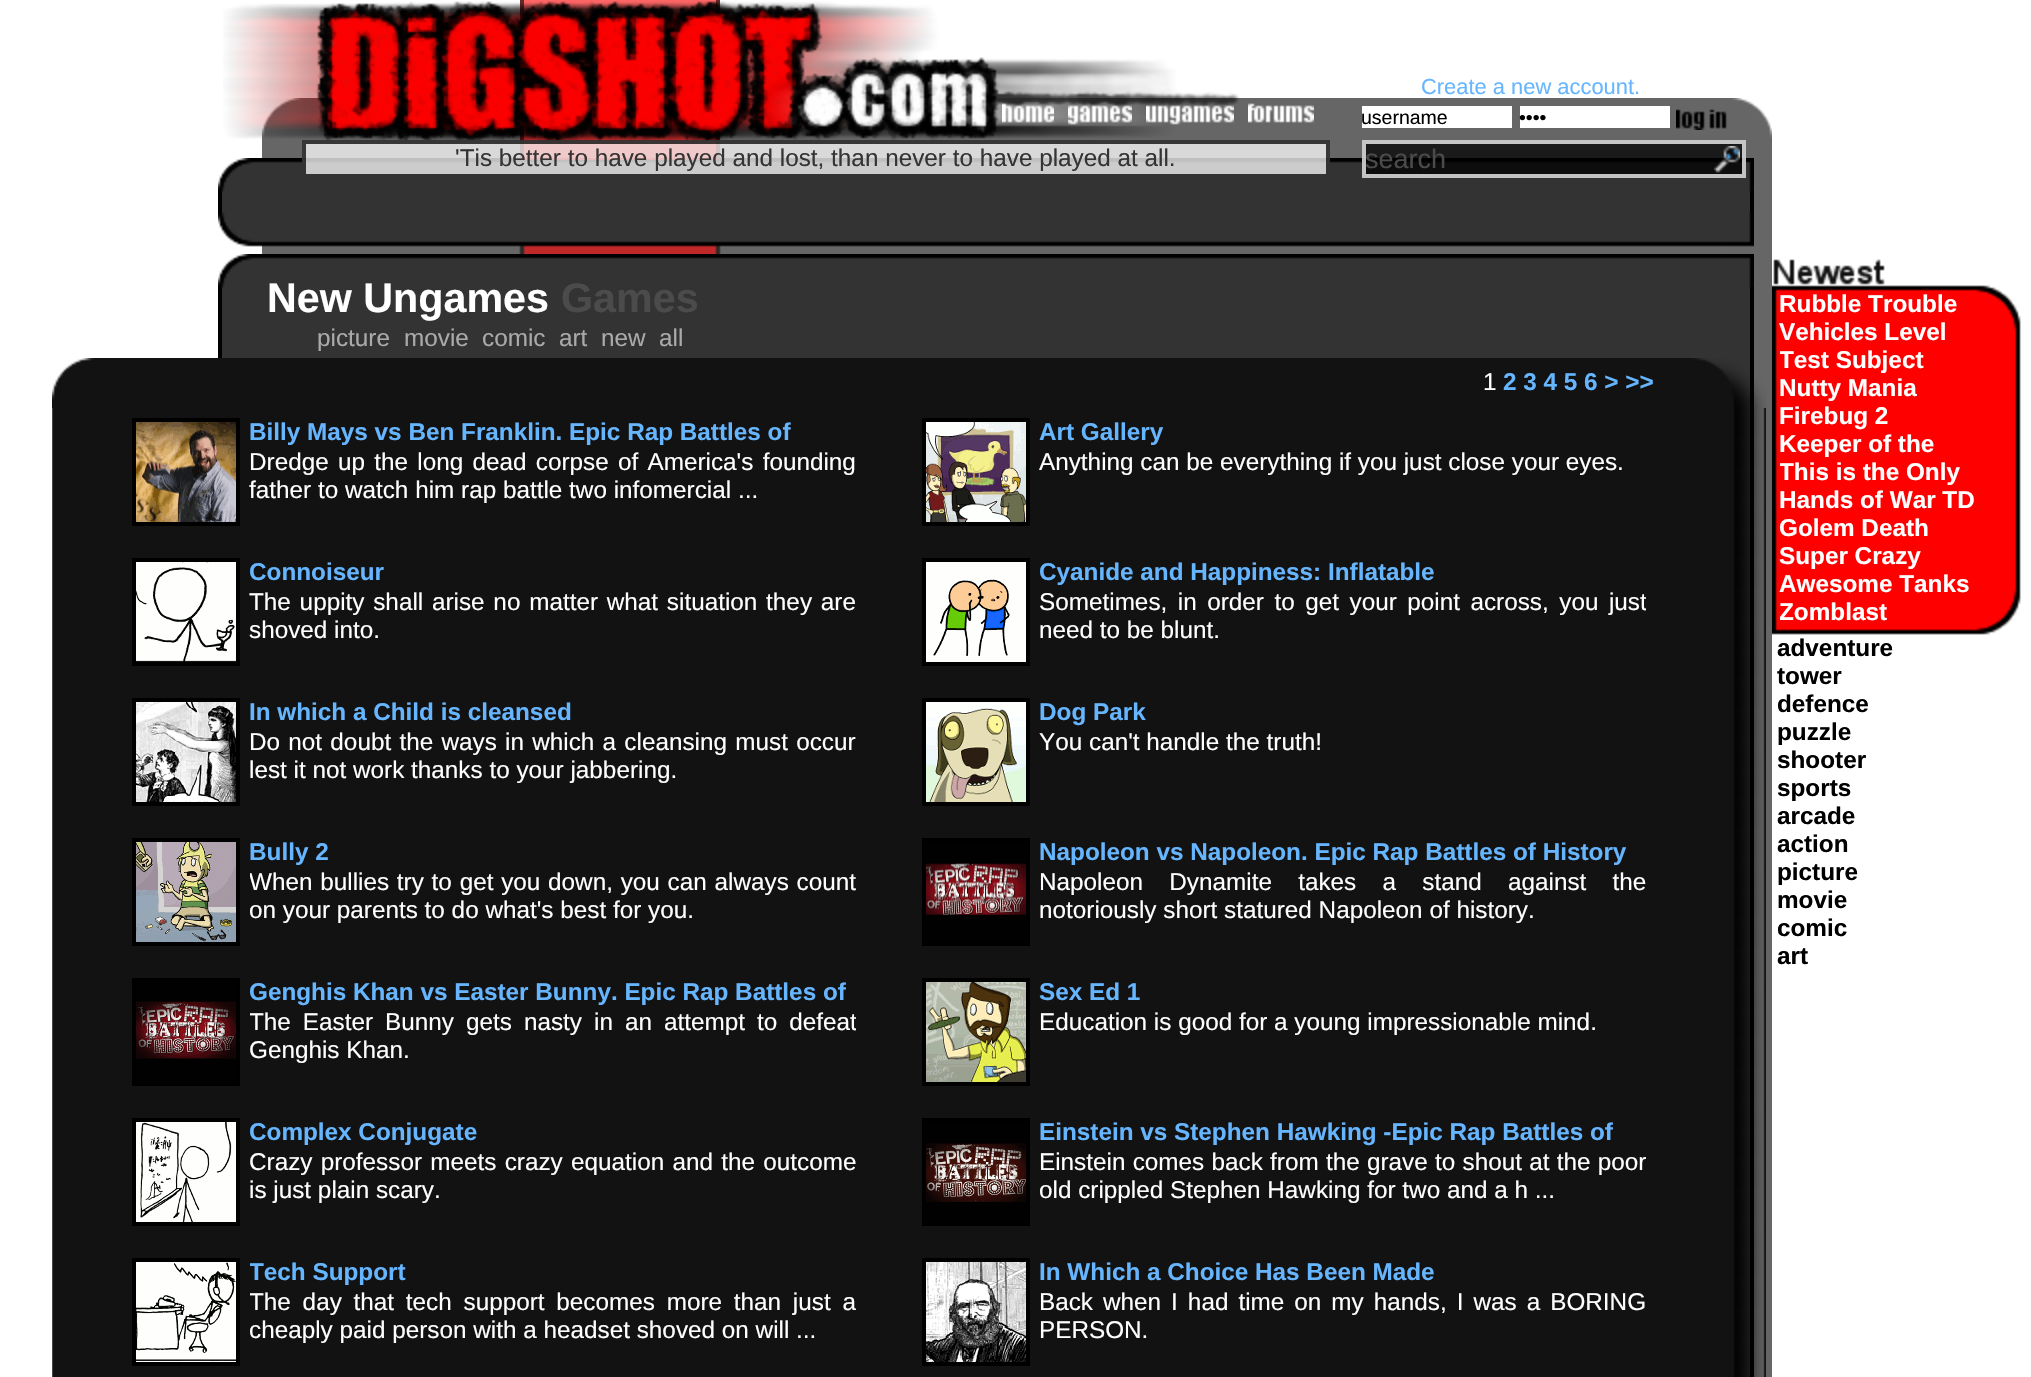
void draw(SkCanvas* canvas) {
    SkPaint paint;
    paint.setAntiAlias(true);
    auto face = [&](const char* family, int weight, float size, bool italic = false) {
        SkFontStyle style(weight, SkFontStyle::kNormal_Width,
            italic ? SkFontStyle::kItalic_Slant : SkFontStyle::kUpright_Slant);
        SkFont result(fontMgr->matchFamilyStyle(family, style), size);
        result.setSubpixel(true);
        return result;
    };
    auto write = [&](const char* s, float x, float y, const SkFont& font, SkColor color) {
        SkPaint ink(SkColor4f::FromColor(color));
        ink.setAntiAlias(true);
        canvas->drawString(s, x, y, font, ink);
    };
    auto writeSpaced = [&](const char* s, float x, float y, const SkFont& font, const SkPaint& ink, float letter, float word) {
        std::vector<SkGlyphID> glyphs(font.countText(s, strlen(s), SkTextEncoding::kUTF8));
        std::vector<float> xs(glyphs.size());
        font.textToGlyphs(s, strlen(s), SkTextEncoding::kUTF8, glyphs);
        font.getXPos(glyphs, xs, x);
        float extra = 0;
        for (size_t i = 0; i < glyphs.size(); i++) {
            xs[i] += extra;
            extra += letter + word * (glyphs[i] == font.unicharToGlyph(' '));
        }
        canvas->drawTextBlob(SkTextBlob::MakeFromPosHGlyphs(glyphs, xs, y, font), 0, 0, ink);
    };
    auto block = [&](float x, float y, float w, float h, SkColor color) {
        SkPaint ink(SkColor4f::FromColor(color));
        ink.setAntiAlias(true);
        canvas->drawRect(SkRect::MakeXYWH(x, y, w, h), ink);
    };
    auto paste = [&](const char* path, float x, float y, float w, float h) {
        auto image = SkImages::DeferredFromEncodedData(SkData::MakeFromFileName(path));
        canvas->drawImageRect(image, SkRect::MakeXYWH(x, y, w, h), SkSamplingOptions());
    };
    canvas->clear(SK_ColorWHITE);
    paste("pic8.png", 262, 98, 1510, 54);
    block(262, 152, 1510, 1225, SkColorSetRGB(102, 102, 102));
    paste("pic9.png", 218, 158, 1536, 34);
    block(520, 0, 200, 160, SkColorSetARGB(153, 254, 0, 0));
    block(716, 0, 4, 160, SkColorSetARGB(153, 0, 0, 0));
    block(520, 0, 4, 160, SkColorSetARGB(153, 0, 0, 0));
    paste("pic1.png", 223, 1, 1017, 141);
    auto kFont1 = face("Liberation Sans", 400, 21.9f);
    write("Create a new account.", 1421, 94, kFont1, SkColorSetRGB(102, 181, 255));
    paste("pic2.png", 1002, 103, 52, 20);
    paste("pic3.png", 1068, 105, 64, 20);
    paste("pic4.png", 1146, 105, 88, 20);
    paste("pic5.png", 1248, 103, 66, 20);
    block(1362, 106, 150, 22, SK_ColorWHITE);
    auto kFont2 = face("Liberation Sans", 400, 19.5f);
    write("username", 1361, 124, kFont2, SK_ColorBLACK);
    block(1520, 106, 150, 22, SK_ColorWHITE);
    write("••••", 1519, 124, kFont2, SK_ColorBLACK);
    paste("pic6.png", 1676, 109, 51, 21);
    block(302, 140, 1028, 38, SkColorSetARGB(191, 255, 255, 255));
    paint.setStyle(SkPaint::kStroke_Style);
    paint.setStrokeWidth(4);
    paint.setColor(SkColorSetARGB(191, 0, 0, 0));
    canvas->drawRect(SkRect::MakeXYWH(304, 142, 1024, 34), paint);
    auto kFont3 = face("Liberation Sans", 400, 24.3f);
    write("'Tis better to have played and lost, than never to have played at all.", 455, 166, kFont3, SkColorSetRGB(53, 51, 51));
    block(1362, 140, 384, 38, SkColorSetARGB(191, 0, 0, 0));
    paint.setColor(SkColorSetARGB(191, 255, 255, 255));
    canvas->drawRect(SkRect::MakeXYWH(1364, 142, 380, 34), paint);
    auto kFont4 = face("Liberation Sans", 400, 27);
    write("search", 1365, 168, kFont4, SkColorSetRGB(75, 75, 75));
    paste("pic7.png", 1714, 146, 26, 27);
    block(222, 192, 1528, 20, SkColorSetRGB(51, 51, 51));
    block(1750, 192, 4, 20, SK_ColorBLACK);
    block(218, 192, 4, 20, SK_ColorBLACK);
    paste("pic10.png", 218, 212, 1536, 42);
    paste("pic9.png", 218, 254, 1536, 34);
    block(222, 288, 1528, 1089, SkColorSetRGB(51, 51, 51));
    auto kFont5 = face("Liberation Sans", 700, 41.25f);
    write("New Ungames", 267, 312, kFont5, SK_ColorWHITE);
    write("Games", 561, 312, kFont5, SkColorSetRGB(75, 75, 75));
    write("picture", 317, 346, kFont3, SkColorSetRGB(170, 170, 170));
    write("movie", 404, 346, kFont3, SkColorSetRGB(170, 170, 170));
    write("comic", 482, 346, kFont3, SkColorSetRGB(170, 170, 170));
    write("art", 559, 346, kFont3, SkColorSetRGB(170, 170, 170));
    write("new", 601, 346, kFont3, SkColorSetRGB(170, 170, 170));
    write("all", 659, 346, kFont3, SkColorSetRGB(170, 170, 170));
    paste("pic11.png", 1772, 259, 249, 376);
    block(1750, 288, 4, 1089, SK_ColorBLACK);
    block(218, 288, 4, 70, SK_ColorBLACK);
    paste("pic12.png", 52, 358, 1715, 50);
    write("1", 1483, 390, kFont3, SK_ColorWHITE);
    auto kFont6 = face("Liberation Sans", 700, 24.3f);
    write("2 3 4 5 6 > >>", 1503, 390, kFont6, SkColorSetRGB(102, 181, 255));
    paste("pic13.png", 52, 408, 1714, 969);
    paint.setColor(SK_ColorBLACK);
    canvas->drawRect(SkRect::MakeXYWH(134, 420, 104, 104), paint);
    paste("pic14.png", 136, 422, 100, 100);
    write("Billy Mays vs Ben Franklin. Epic Rap Battles of", 249, 440, kFont6, SkColorSetRGB(102, 181, 255));
    paint.setStyle(SkPaint::kFill_Style);
    paint.setColor(SK_ColorWHITE);
    writeSpaced("Dredge up the long dead corpse of America's founding", 249, 470, kFont3, paint, 0, 2.5f);
    write("father to watch him rap battle two infomercial ...", 249, 498, kFont3, SK_ColorWHITE);
    paint.setStyle(SkPaint::kStroke_Style);
    paint.setColor(SK_ColorBLACK);
    canvas->drawRect(SkRect::MakeXYWH(924, 420, 104, 104), paint);
    paste("pic15.png", 926, 422, 100, 100);
    write("Art Gallery", 1039, 440, kFont6, SkColorSetRGB(102, 181, 255));
    write("Anything can be everything if you just close your eyes.", 1039, 470, kFont3, SK_ColorWHITE);
    canvas->drawRect(SkRect::MakeXYWH(134, 560, 104, 104), paint);
    paste("pic16.png", 136, 562, 100, 100);
    write("Connoiseur", 249, 580, kFont6, SkColorSetRGB(102, 181, 255));
    paint.setStyle(SkPaint::kFill_Style);
    paint.setColor(SK_ColorWHITE);
    writeSpaced("The uppity shall arise no matter what situation they are", 249, 610, kFont3, paint, 0, 2);
    write("shoved into.", 249, 638, kFont3, SK_ColorWHITE);
    paint.setStyle(SkPaint::kStroke_Style);
    paint.setColor(SK_ColorBLACK);
    canvas->drawRect(SkRect::MakeXYWH(924, 560, 104, 104), paint);
    paste("pic17.png", 926, 562, 100, 100);
    write("Cyanide and Happiness: Inflatable", 1039, 580, kFont6, SkColorSetRGB(102, 181, 255));
    canvas->save();
    canvas->clipRect(SkRect::MakeXYWH(1040, 588, 606, 74));
    paint.setStyle(SkPaint::kFill_Style);
    paint.setColor(SK_ColorWHITE);
    writeSpaced("Sometimes, in order to get your point across, you just", 1039, 610, kFont3, paint, 0, 3.75f);
    canvas->restore();
    write("need to be blunt.", 1039, 638, kFont3, SK_ColorWHITE);
    paint.setStyle(SkPaint::kStroke_Style);
    paint.setColor(SK_ColorBLACK);
    canvas->drawRect(SkRect::MakeXYWH(134, 700, 104, 104), paint);
    paste("pic18.png", 136, 702, 100, 100);
    write("In which a Child is cleansed", 249, 720, kFont6, SkColorSetRGB(102, 181, 255));
    paint.setStyle(SkPaint::kFill_Style);
    paint.setColor(SK_ColorWHITE);
    writeSpaced("Do not doubt the ways in which a cleansing must occur", 249, 750, kFont3, paint, 0, 1.5f);
    write("lest it not work thanks to your jabbering.", 249, 778, kFont3, SK_ColorWHITE);
    paint.setStyle(SkPaint::kStroke_Style);
    paint.setColor(SK_ColorBLACK);
    canvas->drawRect(SkRect::MakeXYWH(924, 700, 104, 104), paint);
    paste("pic19.png", 926, 702, 100, 100);
    write("Dog Park", 1039, 720, kFont6, SkColorSetRGB(102, 181, 255));
    write("You can't handle the truth!", 1039, 750, kFont3, SK_ColorWHITE);
    canvas->drawRect(SkRect::MakeXYWH(134, 840, 104, 104), paint);
    paste("pic20.png", 136, 842, 100, 100);
    write("Bully 2", 249, 860, kFont6, SkColorSetRGB(102, 181, 255));
    canvas->save();
    canvas->clipRect(SkRect::MakeXYWH(250, 868, 606, 74));
    paint.setStyle(SkPaint::kFill_Style);
    paint.setColor(SK_ColorWHITE);
    writeSpaced("When bullies try to get you down, you can always count", 249, 890, kFont3, paint, 0, 1);
    canvas->restore();
    write("on your parents to do what's best for you.", 249, 918, kFont3, SK_ColorWHITE);
    paint.setStyle(SkPaint::kStroke_Style);
    paint.setColor(SK_ColorBLACK);
    canvas->drawRect(SkRect::MakeXYWH(924, 840, 104, 104), paint);
    paste("pic21.png", 926, 842, 100, 100);
    write("Napoleon vs Napoleon. Epic Rap Battles of History", 1039, 860, kFont6, SkColorSetRGB(102, 181, 255));
    paint.setStyle(SkPaint::kFill_Style);
    paint.setColor(SK_ColorWHITE);
    writeSpaced("Napoleon Dynamite takes a stand against the", 1039, 890, kFont3, paint, 0, 19.5f);
    write("notoriously short statured Napoleon of history.", 1039, 918, kFont3, SK_ColorWHITE);
    paint.setStyle(SkPaint::kStroke_Style);
    paint.setColor(SK_ColorBLACK);
    canvas->drawRect(SkRect::MakeXYWH(134, 980, 104, 104), paint);
    paste("pic22.png", 136, 982, 100, 100);
    write("Genghis Khan vs Easter Bunny. Epic Rap Battles of", 249, 1000, kFont6, SkColorSetRGB(102, 181, 255));
    canvas->save();
    canvas->clipRect(SkRect::MakeXYWH(250, 1008, 606, 74));
    paint.setStyle(SkPaint::kFill_Style);
    paint.setColor(SK_ColorWHITE);
    writeSpaced("The Easter Bunny gets nasty in an attempt to defeat", 249, 1030, kFont3, paint, 0, 5.25f);
    canvas->restore();
    write("Genghis Khan.", 249, 1058, kFont3, SK_ColorWHITE);
    paint.setStyle(SkPaint::kStroke_Style);
    paint.setColor(SK_ColorBLACK);
    canvas->drawRect(SkRect::MakeXYWH(924, 980, 104, 104), paint);
    paste("pic23.png", 926, 982, 100, 100);
    write("Sex Ed 1", 1039, 1000, kFont6, SkColorSetRGB(102, 181, 255));
    write("Education is good for a young impressionable mind.", 1039, 1030, kFont3, SK_ColorWHITE);
    canvas->drawRect(SkRect::MakeXYWH(134, 1120, 104, 104), paint);
    paste("pic24.png", 136, 1122, 100, 100);
    write("Complex Conjugate", 249, 1140, kFont6, SkColorSetRGB(102, 181, 255));
    paint.setStyle(SkPaint::kFill_Style);
    paint.setColor(SK_ColorWHITE);
    writeSpaced("Crazy professor meets crazy equation and the outcome", 249, 1170, kFont3, paint, 0, 1.5f);
    write("is just plain scary.", 249, 1198, kFont3, SK_ColorWHITE);
    paint.setStyle(SkPaint::kStroke_Style);
    paint.setColor(SK_ColorBLACK);
    canvas->drawRect(SkRect::MakeXYWH(924, 1120, 104, 104), paint);
    paste("pic25.png", 926, 1122, 100, 100);
    write("Einstein vs Stephen Hawking -Epic Rap Battles of", 1039, 1140, kFont6, SkColorSetRGB(102, 181, 255));
    paint.setStyle(SkPaint::kFill_Style);
    paint.setColor(SK_ColorWHITE);
    writeSpaced("Einstein comes back from the grave to shout at the poor", 1039, 1170, kFont3, paint, 0, 0.5f);
    write("old crippled Stephen Hawking for two and a h ...", 1039, 1198, kFont3, SK_ColorWHITE);
    paint.setStyle(SkPaint::kStroke_Style);
    paint.setColor(SK_ColorBLACK);
    canvas->drawRect(SkRect::MakeXYWH(134, 1260, 104, 104), paint);
    paste("pic26.png", 136, 1262, 100, 100);
    canvas->save();
    canvas->clipRect(SkRect::MakeXYWH(250, 1258, 606, 30));
    write("Tech Support", 249, 1280, kFont6, SkColorSetRGB(102, 181, 255));
    canvas->restore();
    canvas->save();
    canvas->clipRect(SkRect::MakeXYWH(250, 1288, 606, 74));
    paint.setStyle(SkPaint::kFill_Style);
    paint.setColor(SK_ColorWHITE);
    writeSpaced("The day that tech support becomes more than just a", 249, 1310, kFont3, paint, 0, 5);
    canvas->restore();
    write("cheaply paid person with a headset shoved on will ...", 249, 1338, kFont3, SK_ColorWHITE);
    paint.setStyle(SkPaint::kStroke_Style);
    paint.setColor(SK_ColorBLACK);
    canvas->drawRect(SkRect::MakeXYWH(924, 1260, 104, 104), paint);
    paste("pic27.png", 926, 1262, 100, 100);
    write("In Which a Choice Has Been Made", 1039, 1280, kFont6, SkColorSetRGB(102, 181, 255));
    paint.setStyle(SkPaint::kFill_Style);
    paint.setColor(SK_ColorWHITE);
    writeSpaced("Back when I had time on my hands, I was a BORING", 1039, 1310, kFont3, paint, 0, 3.25f);
    write("PERSON.", 1039, 1338, kFont3, SK_ColorWHITE);
    write("Rubble Trouble", 1779, 312, kFont6, SK_ColorWHITE);
    write("Vehicles Level", 1779, 340, kFont6, SK_ColorWHITE);
    canvas->save();
    canvas->clipRect(SkRect::MakeXYWH(1780, 346, 210, 28));
    write("Test Subject", 1779, 368, kFont6, SK_ColorWHITE);
    canvas->restore();
    write("Nutty Mania", 1779, 396, kFont6, SK_ColorWHITE);
    write("Firebug 2", 1779, 424, kFont6, SK_ColorWHITE);
    write("Keeper of the", 1779, 452, kFont6, SK_ColorWHITE);
    canvas->save();
    canvas->clipRect(SkRect::MakeXYWH(1780, 458, 210, 28));
    write("This is the Only", 1779, 480, kFont6, SK_ColorWHITE);
    canvas->restore();
    write("Hands of War TD", 1779, 508, kFont6, SK_ColorWHITE);
    write("Golem Death", 1779, 536, kFont6, SK_ColorWHITE);
    write("Super Crazy", 1779, 564, kFont6, SK_ColorWHITE);
    write("Awesome Tanks", 1779, 592, kFont6, SK_ColorWHITE);
    canvas->save();
    canvas->clipRect(SkRect::MakeXYWH(1780, 598, 210, 28));
    write("Zomblast", 1779, 620, kFont6, SK_ColorWHITE);
    canvas->restore();
    write("adventure", 1777, 656, kFont6, SK_ColorBLACK);
    write("tower", 1777, 684, kFont6, SK_ColorBLACK);
    write("defence", 1777, 712, kFont6, SK_ColorBLACK);
    write("puzzle", 1777, 740, kFont6, SK_ColorBLACK);
    write("shooter", 1777, 768, kFont6, SK_ColorBLACK);
    write("sports", 1777, 796, kFont6, SK_ColorBLACK);
    write("arcade", 1777, 824, kFont6, SK_ColorBLACK);
    write("action", 1777, 852, kFont6, SK_ColorBLACK);
    write("picture", 1777, 880, kFont6, SK_ColorBLACK);
    write("movie", 1777, 908, kFont6, SK_ColorBLACK);
    write("comic", 1777, 936, kFont6, SK_ColorBLACK);
    write("art", 1777, 964, kFont6, SK_ColorBLACK);
}
